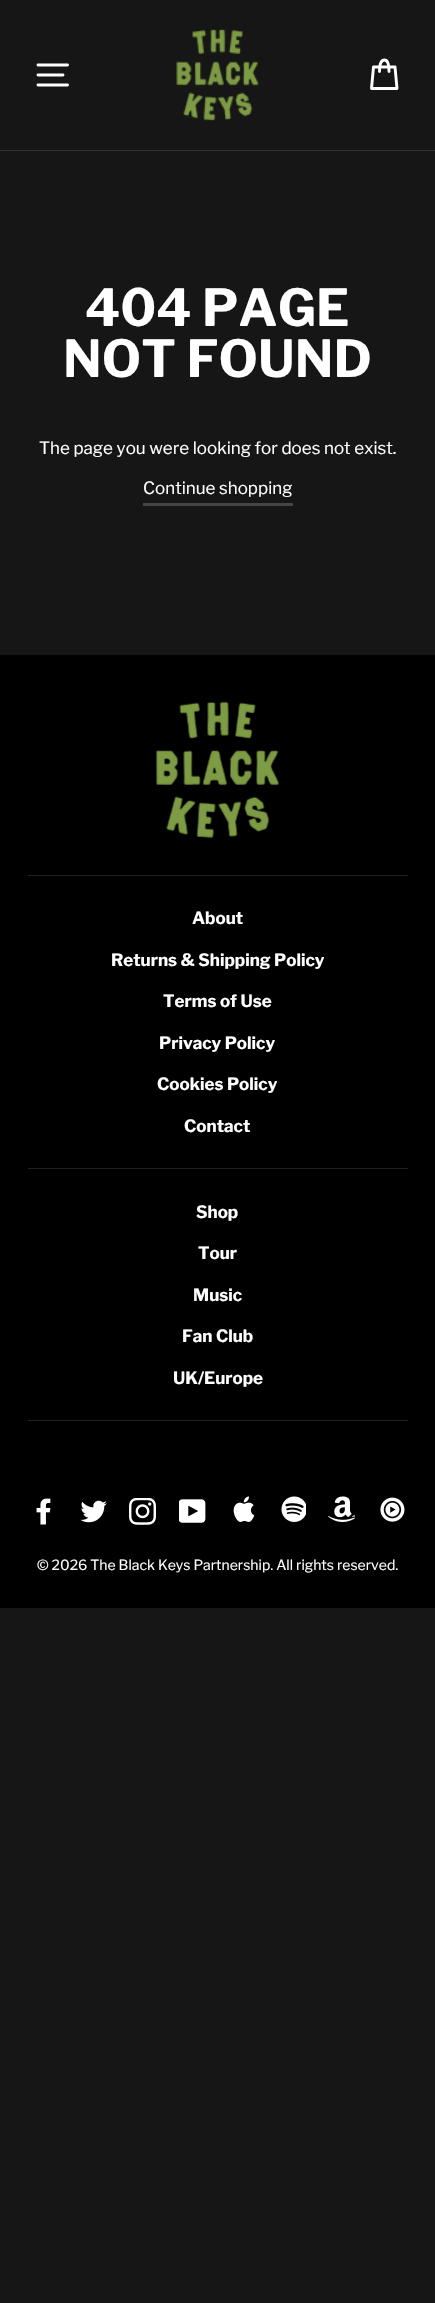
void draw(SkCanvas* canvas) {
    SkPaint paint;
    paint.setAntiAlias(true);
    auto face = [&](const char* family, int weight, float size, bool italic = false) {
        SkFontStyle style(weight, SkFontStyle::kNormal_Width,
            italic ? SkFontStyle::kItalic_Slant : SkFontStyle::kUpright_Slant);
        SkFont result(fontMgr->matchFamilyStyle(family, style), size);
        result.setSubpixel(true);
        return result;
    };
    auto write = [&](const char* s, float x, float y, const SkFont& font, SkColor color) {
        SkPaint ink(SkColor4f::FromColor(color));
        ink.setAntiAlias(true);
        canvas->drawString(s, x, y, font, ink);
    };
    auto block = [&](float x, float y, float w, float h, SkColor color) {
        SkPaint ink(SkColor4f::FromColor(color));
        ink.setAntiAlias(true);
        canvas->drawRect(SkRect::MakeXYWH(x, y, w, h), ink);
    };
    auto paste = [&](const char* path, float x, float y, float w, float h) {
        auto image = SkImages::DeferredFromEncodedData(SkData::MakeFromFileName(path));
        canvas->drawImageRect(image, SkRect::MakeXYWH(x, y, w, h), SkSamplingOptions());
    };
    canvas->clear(SkColorSetRGB(22, 22, 22));
    block(0, 150, 435, 1, SkColorSetRGB(51, 51, 51));
    paint.setStyle(SkPaint::kStroke_Style);
    paint.setStrokeWidth(2.9f);
    paint.setStrokeCap(SkPaint::kRound_Cap);
    paint.setStrokeJoin(SkPaint::kRound_Join);
    paint.setColor(SK_ColorWHITE);
    canvas->drawPath(SkPathBuilder().moveTo(38, 65).lineTo(67.5f, 65).moveTo(38, 75).lineTo(63, 75).moveTo(38, 85).lineTo(67.5f, 85).detach(), paint);
    paste("pic1.png", 176, 28, 83, 93);
    canvas->drawPath(SkPathBuilder().moveTo(379.5f, 71.5f).cubicTo(379.5f, 62, 381.5f, 60, 384.5f, 60).cubicTo(387, 60, 389, 62, 389, 71.5f).moveTo(373.5f, 67).lineTo(395, 67).lineTo(397, 88.5f).lineTo(371.5f, 88.5f).close().detach(), paint);
    auto kFont1 = face("Libre Franklin", 700, 51);
    write("404 PAGE", 85, 326, kFont1, SK_ColorWHITE);
    write("NOT FOUND", 63, 377, kFont1, SK_ColorWHITE);
    auto kFont2 = face("Libre Franklin", 400, 17);
    write("The page you were looking for does not exist.", 39, 454, kFont2, SK_ColorWHITE);
    block(143, 503, 150, 3, SkColorSetRGB(69, 69, 69));
    write("Continue shopping", 143, 494, kFont2, SK_ColorWHITE);
    block(0, 655, 435, 953, SK_ColorBLACK);
    paste("pic2.png", 156, 701, 123, 137);
    block(28, 875, 380, 1, SkColorSetRGB(31, 31, 31));
    auto kFont3 = face("Libre Franklin", 700, 17);
    write("About", 192, 924, kFont3, SK_ColorWHITE);
    write("Returns & Shipping Policy", 111, 966, kFont3, SK_ColorWHITE);
    write("Terms of Use", 163, 1007, kFont3, SK_ColorWHITE);
    write("Privacy Policy", 159, 1049, kFont3, SK_ColorWHITE);
    write("Cookies Policy", 157, 1090, kFont3, SK_ColorWHITE);
    write("Contact", 184, 1132, kFont3, SK_ColorWHITE);
    block(28, 1168, 380, 1, SkColorSetRGB(31, 31, 31));
    write("Shop", 196, 1218, kFont3, SK_ColorWHITE);
    write("Tour", 198, 1259, kFont3, SK_ColorWHITE);
    write("Music", 193, 1301, kFont3, SK_ColorWHITE);
    write("Fan Club", 182, 1342, kFont3, SK_ColorWHITE);
    write("UK/Europe", 173, 1384, kFont3, SK_ColorWHITE);
    block(28, 1420, 380, 1, SkColorSetRGB(31, 31, 31));
    paste("pic3.png", 36, 1498, 15, 27);
    paste("pic4.png", 80, 1500, 27, 23);
    paste("pic5.png", 129, 1498, 27, 27);
    paste("pic6.png", 179, 1499, 27, 24);
    paste("pic7.png", 233, 1496, 22, 26);
    paste("pic8.png", 281, 1496, 25, 26);
    paste("pic9.png", 328, 1496, 27, 26);
    paste("pic10.png", 380, 1497, 25, 25);
    auto kFont4 = face("Libre Franklin", 400, 14);
    write("© 2026 The Black Keys Partnership. All rights reserved.", 37, 1570, kFont4, SK_ColorWHITE);
}
